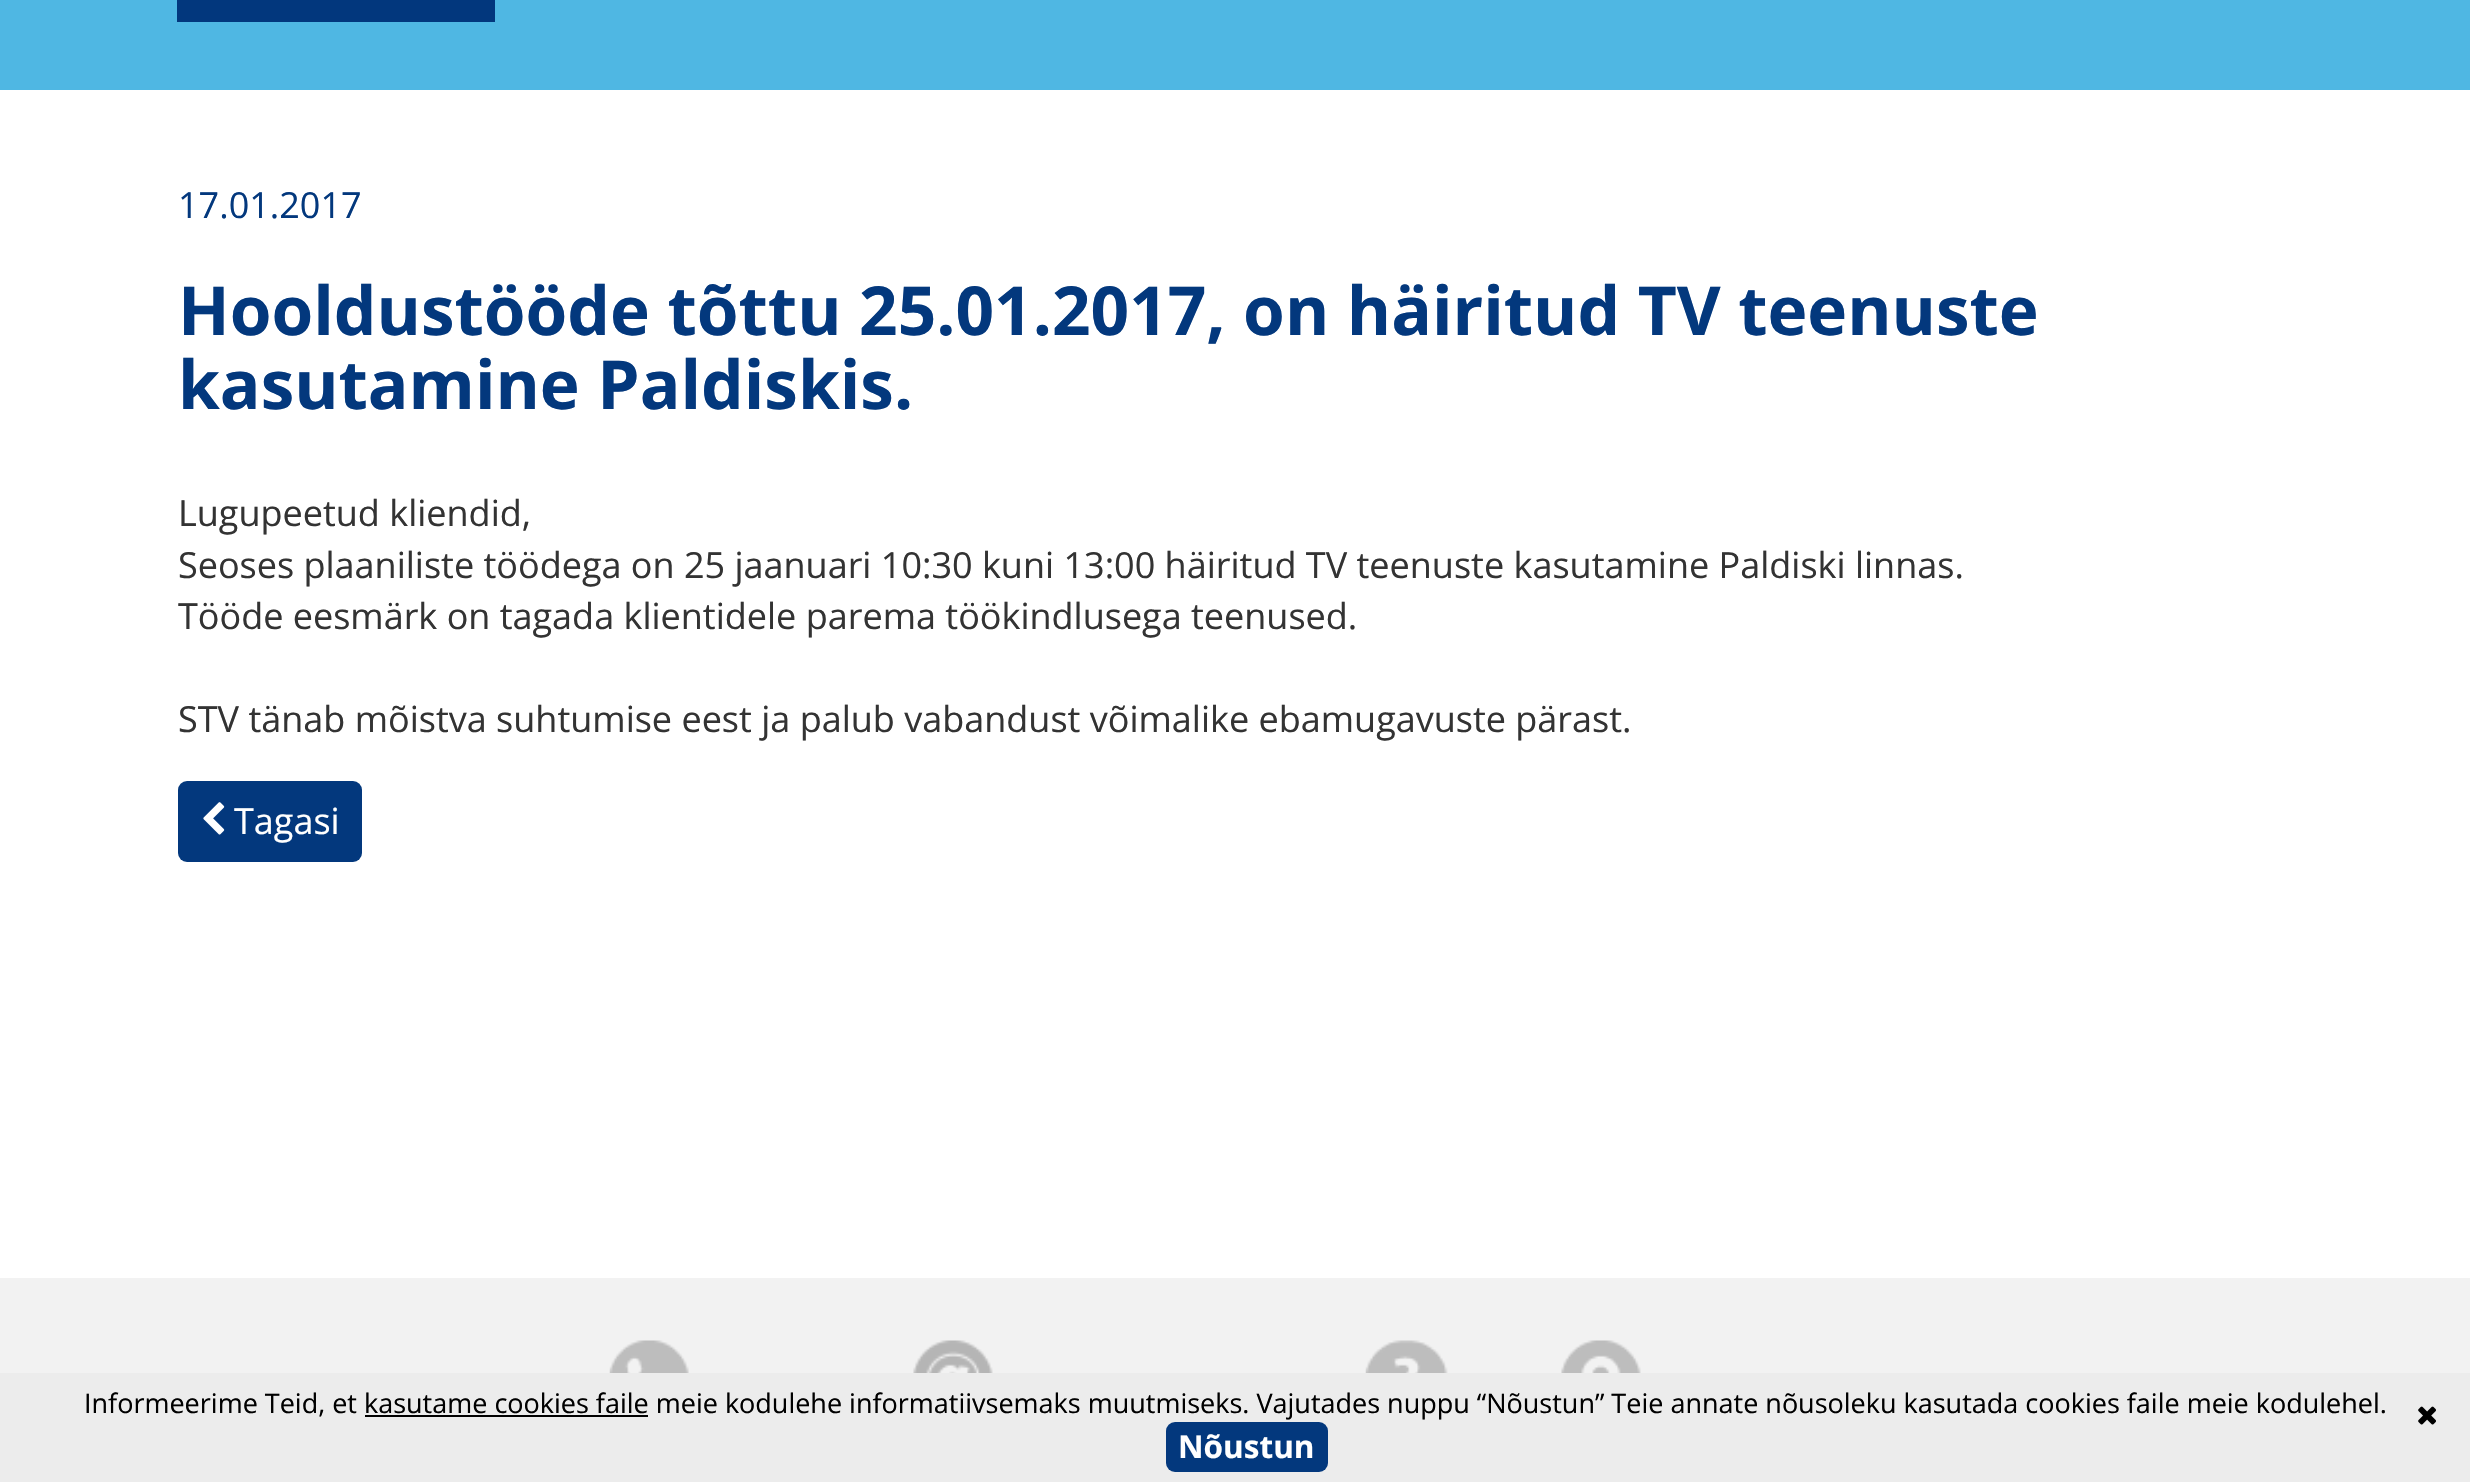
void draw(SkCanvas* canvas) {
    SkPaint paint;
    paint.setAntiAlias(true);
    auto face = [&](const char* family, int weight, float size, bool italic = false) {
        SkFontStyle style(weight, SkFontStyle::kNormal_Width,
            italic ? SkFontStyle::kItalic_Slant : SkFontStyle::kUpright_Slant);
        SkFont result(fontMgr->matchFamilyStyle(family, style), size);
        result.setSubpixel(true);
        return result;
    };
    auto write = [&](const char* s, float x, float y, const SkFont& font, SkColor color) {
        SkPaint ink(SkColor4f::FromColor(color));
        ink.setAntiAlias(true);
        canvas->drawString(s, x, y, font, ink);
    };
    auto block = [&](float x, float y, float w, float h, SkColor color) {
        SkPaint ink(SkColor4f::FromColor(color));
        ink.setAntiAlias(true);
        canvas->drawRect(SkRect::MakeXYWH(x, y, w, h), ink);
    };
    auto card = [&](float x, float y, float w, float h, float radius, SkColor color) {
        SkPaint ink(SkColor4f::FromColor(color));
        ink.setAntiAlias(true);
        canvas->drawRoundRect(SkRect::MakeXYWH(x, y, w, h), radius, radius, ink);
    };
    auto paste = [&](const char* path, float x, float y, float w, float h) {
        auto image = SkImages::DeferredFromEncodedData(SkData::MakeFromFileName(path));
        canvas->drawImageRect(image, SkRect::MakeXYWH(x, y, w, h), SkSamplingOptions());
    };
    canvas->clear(SK_ColorWHITE);
    block(0, 0, 2470, 90, SkColorSetRGB(79, 183, 227));
    block(177, 0, 318, 22, SkColorSetRGB(2, 55, 125));
    auto kFont1 = face("Open Sans", 400, 36);
    write("17.01.2017", 178, 218, kFont1, SkColorSetRGB(3, 56, 125));
    auto kFont2 = face("Open Sans", 700, 67.5f);
    write("Hooldustööde tõttu 25.01.2017, on häiritud TV teenuste", 178, 335, kFont2, SkColorSetRGB(3, 56, 125));
    write("kasutamine Paldiskis.", 178, 409, kFont2, SkColorSetRGB(3, 56, 125));
    write("Lugupeetud kliendid,", 178, 526, kFont1, SkColorSetRGB(51, 51, 51));
    write("Seoses plaaniliste töödega on 25 jaanuari 10:30 kuni 13:00 häiritud TV teenuste kasutamine Paldiski linnas.", 178, 578, kFont1, SkColorSetRGB(51, 51, 51));
    write("Tööde eesmärk on tagada klientidele parema töökindlusega teenused.", 178, 629, kFont1, SkColorSetRGB(51, 51, 51));
    write("STV tänab mõistva suhtumise eest ja palub vabandust võimalike ebamugavuste pärast.", 178, 732, kFont1, SkColorSetRGB(51, 51, 51));
    card(178, 781, 184, 81, 9, SkColorSetRGB(3, 56, 125));
    paste("pic1.png", 203, 802, 22, 33);
    write("Tagasi", 234, 834, kFont1, SK_ColorWHITE);
    block(0, 1278, 2470, 95, SkColorSetRGB(242, 242, 242));
    paste("pic2.png", 609, 1340, 80, 33);
    paste("pic3.png", 913, 1340, 80, 33);
    paste("pic4.png", 1365, 1340, 83, 33);
    paste("pic5.png", 1561, 1340, 80, 33);
    block(0, 1373, 2470, 109, SkColorSetRGB(236, 236, 236));
    auto kFont3 = face("Open Sans", 400, 27);
    write("Informeerime Teid, et kasutame cookies faile meie kodulehe informatiivsemaks muutmiseks. Vajutades nuppu “Nõustun” Teie annate nõusoleku kasutada cookies faile meie kodulehel.", 84, 1413, kFont3, SK_ColorBLACK);
    paste("pic6.png", 2418, 1406, 18, 19);
    block(365, 1415, 283, 2, SK_ColorBLACK);
    card(1166, 1422, 162, 50, 9, SkColorSetRGB(3, 56, 125));
    auto kFont4 = face("Open Sans", 700, 31.5f);
    write("Nõustun", 1178, 1458, kFont4, SK_ColorWHITE);
}
